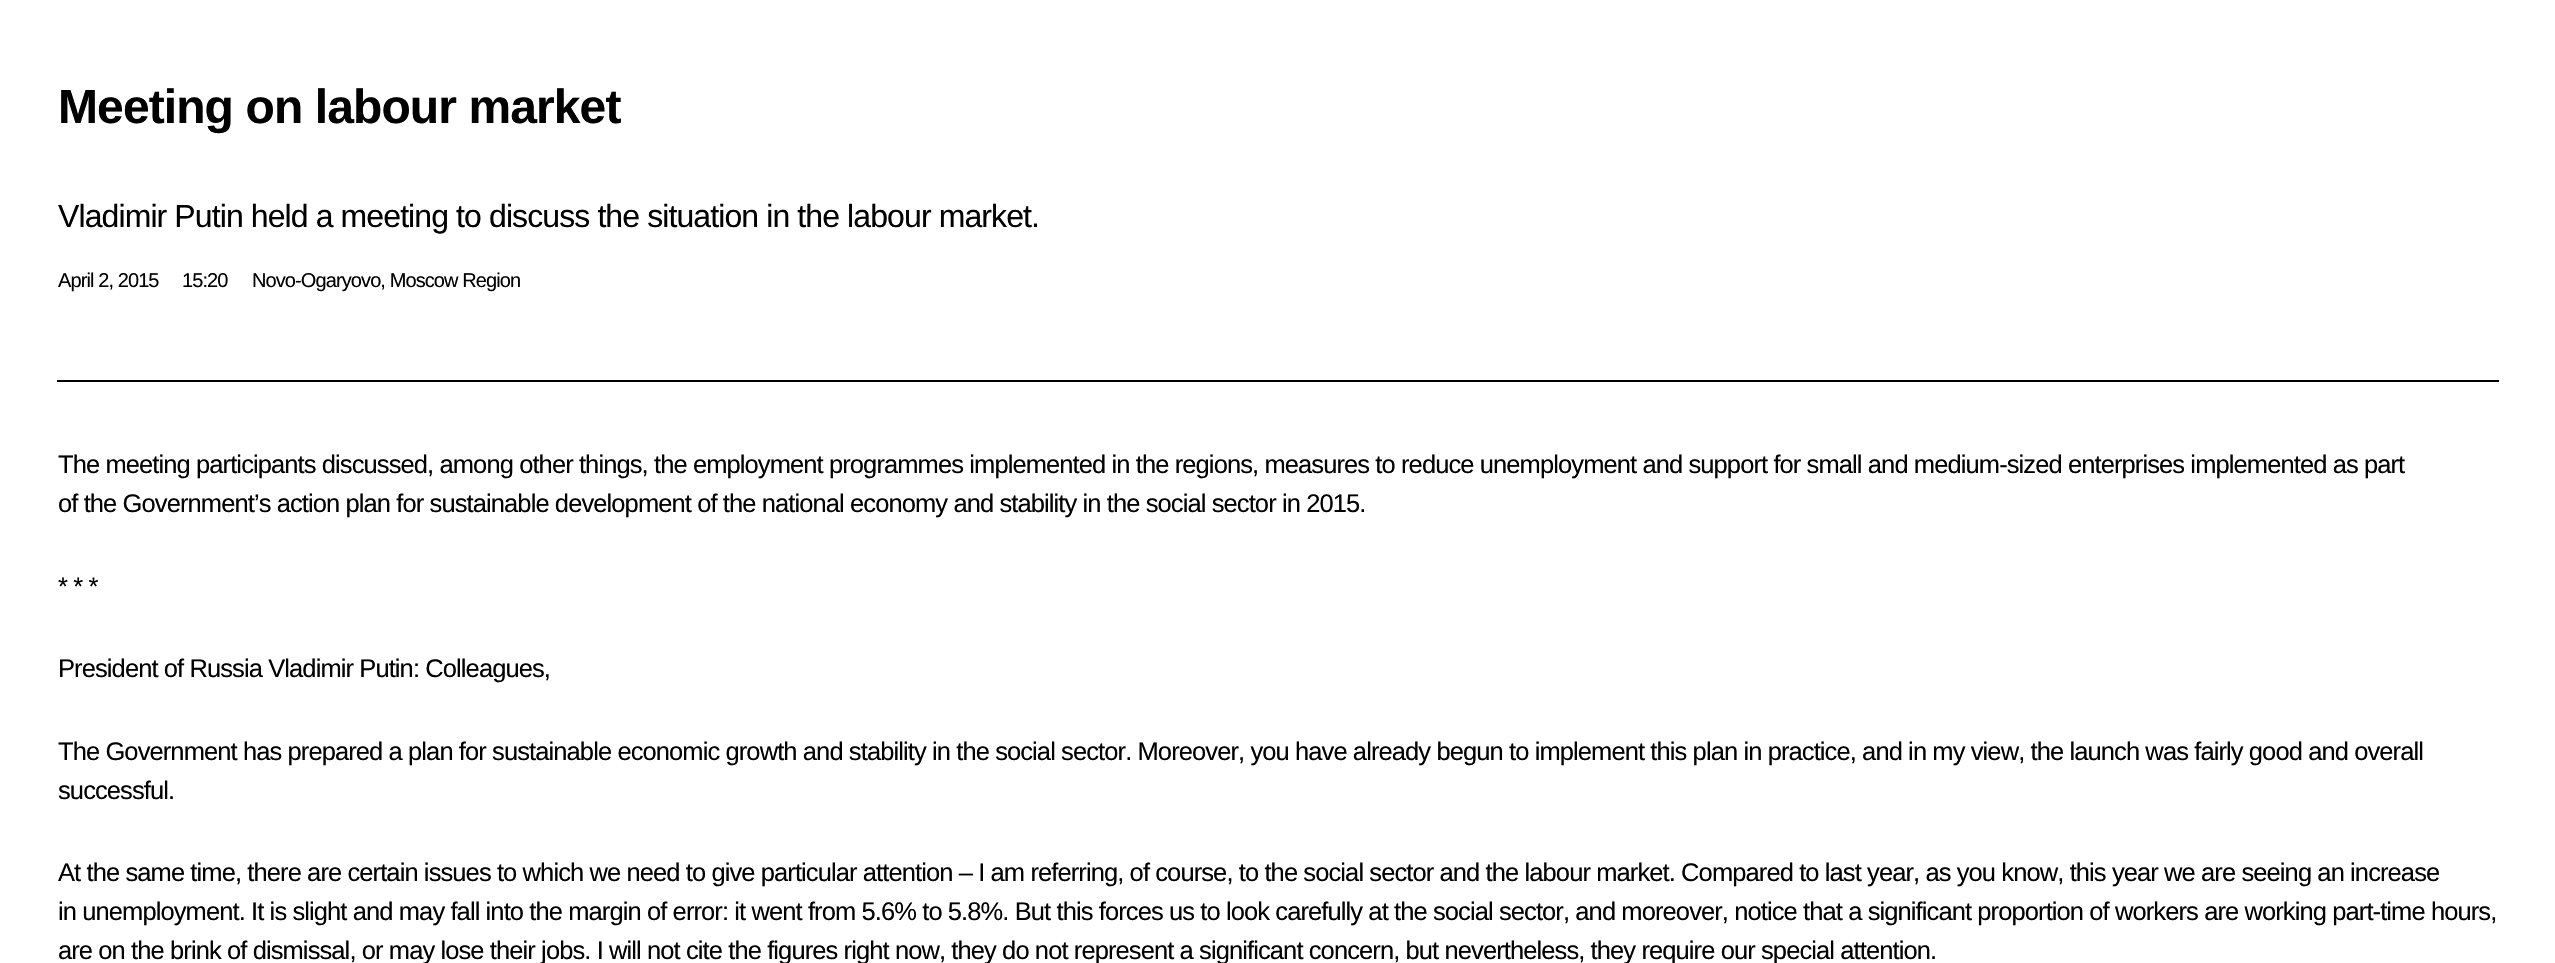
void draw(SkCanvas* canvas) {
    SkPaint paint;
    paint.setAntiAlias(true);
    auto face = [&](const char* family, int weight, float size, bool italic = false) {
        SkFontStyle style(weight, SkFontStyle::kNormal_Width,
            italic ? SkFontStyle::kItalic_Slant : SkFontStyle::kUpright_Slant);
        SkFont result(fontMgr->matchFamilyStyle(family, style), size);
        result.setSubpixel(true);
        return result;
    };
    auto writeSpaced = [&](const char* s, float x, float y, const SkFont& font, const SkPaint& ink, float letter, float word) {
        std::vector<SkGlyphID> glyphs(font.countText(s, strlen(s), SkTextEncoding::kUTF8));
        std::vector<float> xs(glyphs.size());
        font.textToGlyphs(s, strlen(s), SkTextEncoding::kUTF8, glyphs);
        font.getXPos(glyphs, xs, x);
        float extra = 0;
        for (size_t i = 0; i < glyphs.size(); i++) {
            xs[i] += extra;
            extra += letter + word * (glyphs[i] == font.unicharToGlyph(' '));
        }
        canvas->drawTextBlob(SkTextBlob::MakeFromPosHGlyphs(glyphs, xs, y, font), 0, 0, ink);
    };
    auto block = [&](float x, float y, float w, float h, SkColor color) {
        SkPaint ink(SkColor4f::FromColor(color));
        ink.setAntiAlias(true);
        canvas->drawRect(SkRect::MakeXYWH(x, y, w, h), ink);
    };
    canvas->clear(SK_ColorWHITE);
    block(57, 380, 2442, 2, SK_ColorBLACK);
    auto kFont1 = face("Liberation Sans", 700, 48);
    paint.setColor(SK_ColorBLACK);
    writeSpaced("Meeting on labour market", 58, 123, kFont1, paint, -0.9f, 0);
    auto kFont2 = face("Liberation Sans", 400, 32);
    writeSpaced("Vladimir Putin held a meeting to discuss the situation in the labour market.", 58, 227, kFont2, paint, -0.9f, 0);
    auto kFont3 = face("Liberation Sans", 400, 20);
    writeSpaced("April 2, 2015", 58, 287, kFont3, paint, -0.9f, 0);
    writeSpaced("15:20", 182, 287, kFont3, paint, -0.9f, 0);
    writeSpaced("Novo-Ogaryovo, Moscow Region", 252, 287, kFont3, paint, -0.9f, 0);
    auto kFont4 = face("Liberation Sans", 400, 25.5f);
    writeSpaced("The meeting participants discussed, among other things, the employment programmes implemented in the regions, measures to reduce unemployment and support for small and medium-sized enterprises implemented as part", 58, 473, kFont4, paint, -0.9f, 0);
    writeSpaced("of the Government’s action plan for sustainable development of the national economy and stability in the social sector in 2015.", 58, 512, kFont4, paint, -0.9f, 0);
    writeSpaced("* * *", 58, 595, kFont4, paint, -0.9f, 0);
    writeSpaced("President of Russia Vladimir Putin: Colleagues,", 58, 677, kFont4, paint, -0.9f, 0);
    writeSpaced("The Government has prepared a plan for sustainable economic growth and stability in the social sector. Moreover, you have already begun to implement this plan in practice, and in my view, the launch was fairly good and overall", 58, 760, kFont4, paint, -0.9f, 0);
    writeSpaced("successful.", 58, 799, kFont4, paint, -0.9f, 0);
    writeSpaced("At the same time, there are certain issues to which we need to give particular attention – I am referring, of course, to the social sector and the labour market. Compared to last year, as you know, this year we are seeing an increase", 58, 881, kFont4, paint, -0.9f, 0);
    writeSpaced("in unemployment. It is slight and may fall into the margin of error: it went from 5.6% to 5.8%. But this forces us to look carefully at the social sector, and moreover, notice that a significant proportion of workers are working part-time hours,", 58, 920, kFont4, paint, -0.9f, 0);
    writeSpaced("are on the brink of dismissal, or may lose their jobs. I will not cite the figures right now, they do not represent a significant concern, but nevertheless, they require our special attention.", 58, 959, kFont4, paint, -0.9f, 0);
}
